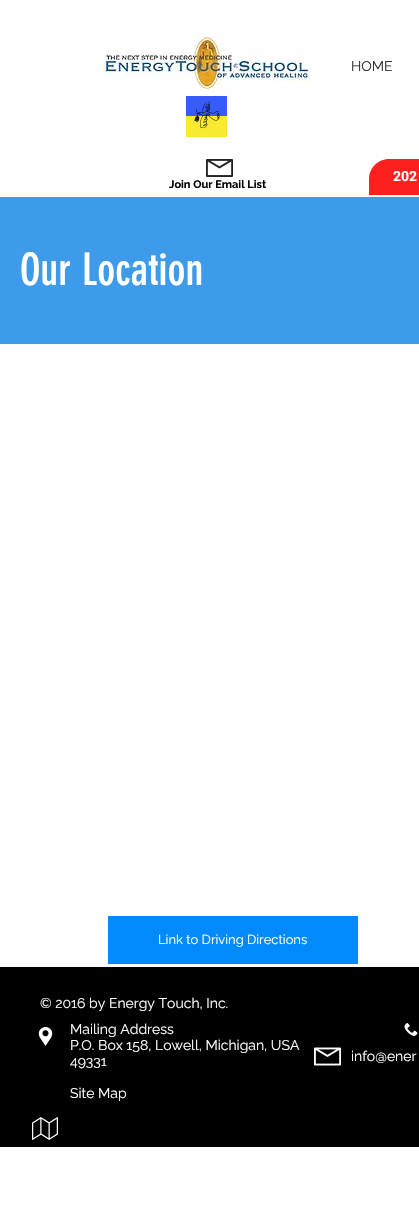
void draw(SkCanvas* canvas) {
    SkPaint paint;
    paint.setAntiAlias(true);
    auto face = [&](const char* family, int weight, float size, bool italic = false) {
        SkFontStyle style(weight, SkFontStyle::kNormal_Width,
            italic ? SkFontStyle::kItalic_Slant : SkFontStyle::kUpright_Slant);
        SkFont result(fontMgr->matchFamilyStyle(family, style), size);
        result.setSubpixel(true);
        return result;
    };
    auto write = [&](const char* s, float x, float y, const SkFont& font, SkColor color) {
        SkPaint ink(SkColor4f::FromColor(color));
        ink.setAntiAlias(true);
        canvas->drawString(s, x, y, font, ink);
    };
    auto block = [&](float x, float y, float w, float h, SkColor color) {
        SkPaint ink(SkColor4f::FromColor(color));
        ink.setAntiAlias(true);
        canvas->drawRect(SkRect::MakeXYWH(x, y, w, h), ink);
    };
    auto paste = [&](const char* path, float x, float y, float w, float h) {
        auto image = SkImages::DeferredFromEncodedData(SkData::MakeFromFileName(path));
        canvas->drawImageRect(image, SkRect::MakeXYWH(x, y, w, h), SkSamplingOptions());
    };
    canvas->clear(SK_ColorWHITE);
    paste("pic1.png", 102, 36, 208, 54);
    auto kFont1 = face("Raleway", 400, 14);
    write("HOME", 351, 71, kFont1, SkColorSetRGB(47, 46, 46));
    paste("pic2.png", 186, 96, 41, 41);
    paint.setColor(SkColorSetRGB(255, 31, 31));
    canvas->drawPath(SkPathBuilder().moveTo(389, 159).lineTo(419, 159).cubicTo(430, 159, 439, 168, 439, 179).lineTo(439, 195).lineTo(369, 195).lineTo(369, 179).cubicTo(369, 168, 378, 159, 389, 159).close().detach(), paint);
    auto kFont2 = face("Roboto", 700, 14);
    write("202", 393, 181, kFont2, SK_ColorWHITE);
    paste("pic3.png", 206, 159, 27, 18);
    auto kFont3 = face("Raleway", 700, 11);
    write("Join Our Email List", 169, 188, kFont3, SK_ColorBLACK);
    block(0, 197, 419, 147, SkColorSetRGB(61, 155, 233));
    auto kFont4 = face("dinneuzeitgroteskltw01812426", 400, 44);
    write("Our Location", 20, 285, kFont4, SK_ColorWHITE);
    block(108, 916, 250, 48, SkColorSetRGB(0, 138, 252));
    auto kFont5 = face("Raleway", 400, 13);
    write("Link to Driving Directions", 158, 944, kFont5, SK_ColorWHITE);
    block(0, 967, 419, 180, SK_ColorBLACK);
    write("© 2016 by Energy Touch, Inc.", 40, 1008, kFont1, SK_ColorWHITE);
    paste("pic4.png", 38, 1027, 15, 19);
    write("Mailing Address", 70, 1034, kFont1, SK_ColorWHITE);
    write("P.O. Box 158, Lowell, Michigan, USA", 70, 1050, kFont1, SK_ColorWHITE);
    write("49331", 70, 1066, kFont1, SK_ColorWHITE);
    write("Site Map", 70, 1098, kFont1, SK_ColorWHITE);
    paste("pic5.png", 404, 1023, 14, 13);
    paste("pic6.png", 314, 1047, 27, 19);
    write("info@ener", 351, 1061, kFont1, SK_ColorWHITE);
    paste("pic7.png", 32, 1117, 26, 23);
}
